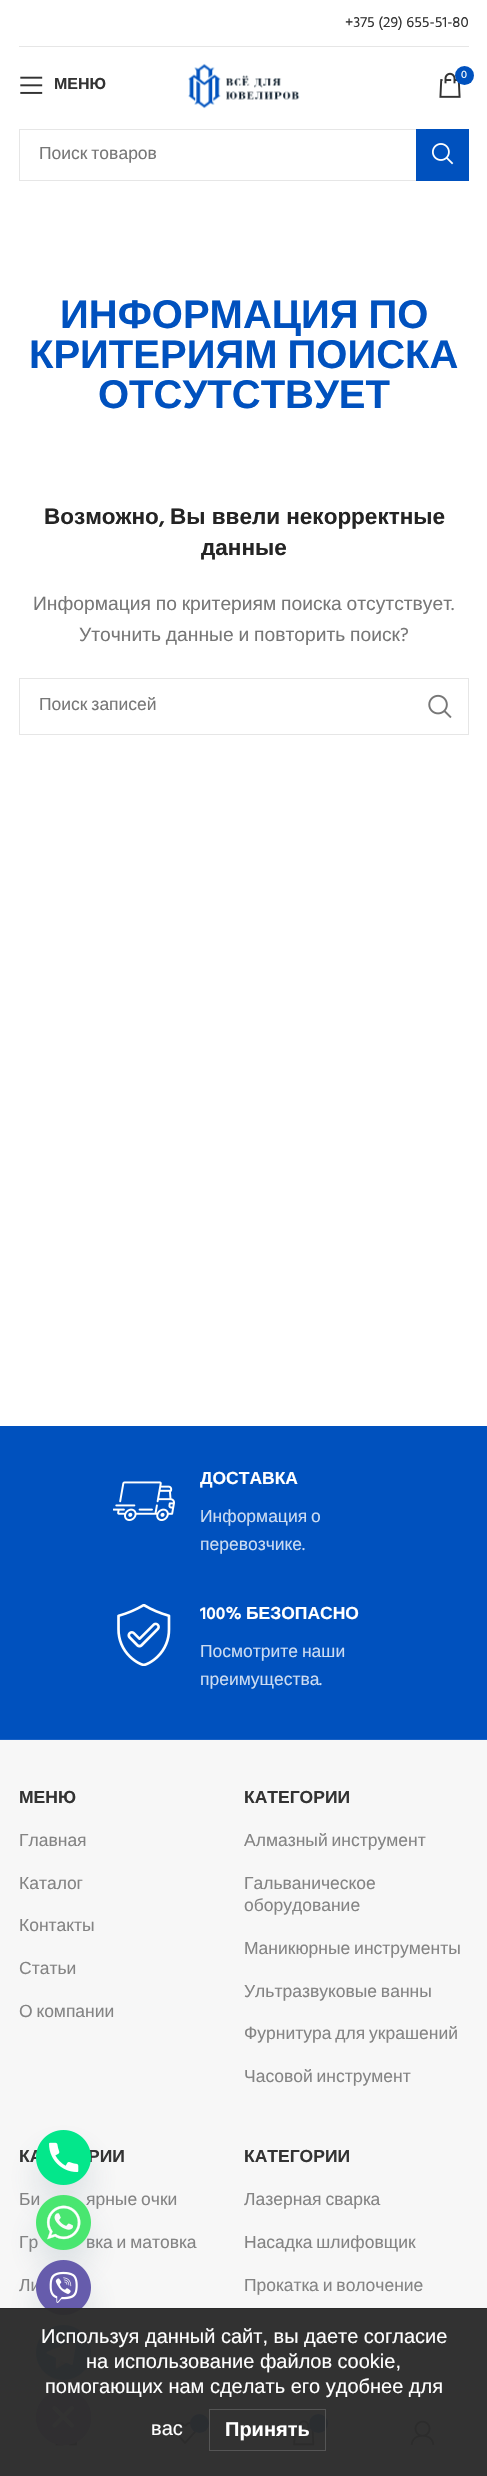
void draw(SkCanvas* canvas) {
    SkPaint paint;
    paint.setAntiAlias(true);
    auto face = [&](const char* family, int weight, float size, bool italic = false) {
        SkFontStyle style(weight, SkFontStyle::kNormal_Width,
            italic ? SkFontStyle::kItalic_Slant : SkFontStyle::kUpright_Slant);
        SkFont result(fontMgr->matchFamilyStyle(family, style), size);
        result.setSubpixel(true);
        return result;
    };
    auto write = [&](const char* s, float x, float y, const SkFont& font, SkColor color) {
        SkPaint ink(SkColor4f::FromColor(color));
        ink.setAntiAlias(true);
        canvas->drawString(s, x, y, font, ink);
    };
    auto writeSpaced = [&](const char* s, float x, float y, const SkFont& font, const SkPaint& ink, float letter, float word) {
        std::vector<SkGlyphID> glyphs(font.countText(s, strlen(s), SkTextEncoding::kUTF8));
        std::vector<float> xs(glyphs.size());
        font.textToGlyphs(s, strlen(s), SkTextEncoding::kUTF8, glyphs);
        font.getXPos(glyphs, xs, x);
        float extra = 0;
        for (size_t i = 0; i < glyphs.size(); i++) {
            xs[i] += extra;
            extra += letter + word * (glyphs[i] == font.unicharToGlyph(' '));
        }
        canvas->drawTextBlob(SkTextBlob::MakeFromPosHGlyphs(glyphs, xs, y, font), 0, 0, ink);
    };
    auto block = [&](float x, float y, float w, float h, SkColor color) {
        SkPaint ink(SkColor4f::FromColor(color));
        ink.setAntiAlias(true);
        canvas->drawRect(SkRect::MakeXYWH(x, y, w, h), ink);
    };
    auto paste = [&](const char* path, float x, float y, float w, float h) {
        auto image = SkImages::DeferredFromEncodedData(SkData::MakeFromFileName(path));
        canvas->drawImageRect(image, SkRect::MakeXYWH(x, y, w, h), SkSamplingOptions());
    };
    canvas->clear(SK_ColorWHITE);
    block(19, 46, 450, 1, SkColorSetRGB(230, 230, 230));
    auto kFont1 = face("Hind", 400, 15);
    write("+375 (29) 655-51-80", 345, 27, kFont1, SkColorSetRGB(51, 51, 51));
    paste("pic1.png", 188, 63, 112, 46);
    paste("pic2.png", 439, 72, 22, 26);
    paint.setColor(SkColorSetRGB(0, 81, 190));
    canvas->drawCircle(464.5f, 75.5f, 9.5f, paint);
    auto kFont2 = face("Hind", 400, 11);
    write("0", 461, 78, kFont2, SK_ColorWHITE);
    paste("pic3.png", 20, 76, 23, 18);
    auto kFont3 = face("Liberation Sans", 700, 16);
    write("МЕНЮ", 54, 89, kFont3, SkColorSetRGB(51, 51, 51));
    paint.setStyle(SkPaint::kStroke_Style);
    paint.setStrokeWidth(1);
    paint.setColor(SkColorSetRGB(230, 230, 230));
    canvas->drawRect(SkRect::MakeXYWH(19.5f, 129.5f, 449, 51), paint);
    auto kFont4 = face("Liberation Sans", 400, 17.5f);
    paint.setStyle(SkPaint::kFill_Style);
    paint.setColor(SkColorSetRGB(119, 119, 119));
    writeSpaced("Поиск товаров", 39, 159, kFont4, paint, 0, -1);
    block(416, 129, 53, 52, SkColorSetRGB(0, 81, 190));
    paste("pic4.png", 432, 143, 22, 22);
    auto kFont5 = face("Liberation Sans", 700, 40);
    paint.setColor(SkColorSetRGB(0, 81, 190));
    writeSpaced("ИНФОРМАЦИЯ ПО", 60, 328, kFont5, paint, 0, -1);
    writeSpaced("КРИТЕРИЯМ ПОИСКА", 29, 368, kFont5, paint, 0, -1);
    write("ОТСУТСТВУЕТ", 98, 408, kFont5, SkColorSetRGB(0, 81, 190));
    auto kFont6 = face("Liberation Sans", 700, 22.5f);
    write("Возможно", 44, 524, kFont6, SkColorSetRGB(36, 36, 36));
    auto kFont7 = face("Hind", 600, 22.5f);
    write(",", 159, 524, kFont7, SkColorSetRGB(36, 36, 36));
    write("Вы ввели некорректные", 170, 524, kFont6, SkColorSetRGB(36, 36, 36));
    write("данные", 201, 555, kFont6, SkColorSetRGB(36, 36, 36));
    auto kFont8 = face("Liberation Sans", 400, 19.25f);
    paint.setColor(SkColorSetRGB(119, 119, 119));
    writeSpaced("Информация по критериям поиска отсутствует", 33, 610, kFont8, paint, 0, -0.5f);
    auto kFont9 = face("Hind", 400, 19.25f);
    write(".", 451, 610, kFont9, SkColorSetRGB(119, 119, 119));
    writeSpaced("Уточнить данные и повторить поиск", 79, 641, kFont8, paint, 0, -0.5f);
    write("?", 400, 641, kFont9, SkColorSetRGB(119, 119, 119));
    paint.setStyle(SkPaint::kStroke_Style);
    paint.setColor(SkColorSetRGB(230, 230, 230));
    canvas->drawRect(SkRect::MakeXYWH(19.5f, 678.5f, 449, 56), paint);
    paint.setStyle(SkPaint::kFill_Style);
    paint.setColor(SkColorSetRGB(119, 119, 119));
    writeSpaced("Поиск записей", 39, 710, kFont4, paint, 0, -1);
    paste("pic5.png", 428, 694, 24, 25);
    block(0, 1426, 487, 313, SkColorSetRGB(0, 81, 190));
    block(0, 1739, 487, 1, SkColorSetRGB(26, 98, 197));
    paste("pic6.png", 113, 1481, 62, 40);
    auto kFont10 = face("Liberation Sans", 700, 17.5f);
    write("ДОСТАВКА", 200, 1484, kFont10, SK_ColorWHITE);
    paint.setColor(SkColorSetRGB(204, 220, 242));
    writeSpaced("Информация о", 200, 1522, kFont4, paint, 0, -1);
    write("перевозчике", 200, 1550, kFont4, SkColorSetRGB(204, 220, 242));
    auto kFont11 = face("Hind", 400, 17.5f);
    write(".", 302, 1550, kFont11, SkColorSetRGB(204, 220, 242));
    paste("pic7.png", 117, 1604, 54, 62);
    auto kFont12 = face("Hind", 600, 17.5f);
    write("100%", 200, 1619, kFont12, SK_ColorWHITE);
    write("БЕЗОПАСНО", 246, 1619, kFont10, SK_ColorWHITE);
    writeSpaced("Посмотрите наши", 200, 1657, kFont4, paint, 0, -1);
    write("преимущества", 200, 1685, kFont4, SkColorSetRGB(204, 220, 242));
    write(".", 319, 1685, kFont11, SkColorSetRGB(204, 220, 242));
    block(0, 1740, 487, 668, SkColorSetRGB(247, 247, 247));
    write("МЕНЮ", 19, 1803, kFont10, SkColorSetRGB(51, 51, 51));
    write("Главная", 19, 1846, kFont4, SkColorSetRGB(132, 132, 132));
    write("Каталог", 19, 1889, kFont4, SkColorSetRGB(132, 132, 132));
    write("Контакты", 19, 1931, kFont4, SkColorSetRGB(132, 132, 132));
    write("Статьи", 19, 1974, kFont4, SkColorSetRGB(132, 132, 132));
    paint.setColor(SkColorSetRGB(132, 132, 132));
    writeSpaced("О компании", 19, 2017, kFont4, paint, 0, -1);
    write("КАТЕГОРИИ", 244, 1803, kFont10, SkColorSetRGB(51, 51, 51));
    writeSpaced("Алмазный инструмент", 244, 1846, kFont4, paint, 0, -1);
    write("Гальваническое", 244, 1889, kFont4, SkColorSetRGB(132, 132, 132));
    write("оборудование", 244, 1911, kFont4, SkColorSetRGB(132, 132, 132));
    writeSpaced("Маникюрные инструменты", 244, 1954, kFont4, paint, 0, -1);
    writeSpaced("Ультразвуковые ванны", 244, 1997, kFont4, paint, 0, -1);
    writeSpaced("Фурнитура для украшений", 244, 2039, kFont4, paint, 0, -1);
    writeSpaced("Часовой инструмент", 244, 2082, kFont4, paint, 0, -1);
    write("КА", 19, 2162, kFont10, SkColorSetRGB(51, 51, 51));
    write("РИИ", 88, 2162, kFont10, SkColorSetRGB(51, 51, 51));
    writeSpaced("Би", 19, 2205, kFont4, paint, 0, -1);
    writeSpaced("ярные очки", 86, 2205, kFont4, paint, 0, -1);
    writeSpaced("Гр", 19, 2248, kFont4, paint, 0, -1);
    writeSpaced("вка и матовка", 86, 2248, kFont4, paint, 0, -1);
    write("Ли", 19, 2291, kFont4, SkColorSetRGB(132, 132, 132));
    write("КАТЕГОРИИ", 244, 2162, kFont10, SkColorSetRGB(51, 51, 51));
    writeSpaced("Лазерная сварка", 244, 2205, kFont4, paint, 0, -1);
    writeSpaced("Насадка шлифовщик", 244, 2248, kFont4, paint, 0, -1);
    writeSpaced("Прокатка и волочение", 244, 2291, kFont4, paint, 0, -1);
    paint.setColor(SkColorSetARGB(41, 73, 104, 126));
    paint.setMaskFilter(SkMaskFilter::MakeBlur(kNormal_SkBlurStyle, 15));
    canvas->drawRoundRect(SkRect::MakeXYWH(36, 2150, 55, 55), 27.5f, 27.5f, paint);
    paint.setMaskFilter(nullptr);
    paste("pic8.png", 36, 2130, 55, 55);
    paint.setMaskFilter(SkMaskFilter::MakeBlur(kNormal_SkBlurStyle, 15));
    canvas->drawRoundRect(SkRect::MakeXYWH(36, 2215, 55, 55), 27.5f, 27.5f, paint);
    paint.setMaskFilter(nullptr);
    paste("pic9.png", 36, 2195, 55, 55);
    paint.setMaskFilter(SkMaskFilter::MakeBlur(kNormal_SkBlurStyle, 15));
    canvas->drawRoundRect(SkRect::MakeXYWH(36, 2280, 55, 55), 27.5f, 27.5f, paint);
    paint.setMaskFilter(nullptr);
    paste("pic10.png", 36, 2260, 55, 55);
    paint.setColor(SkColorSetARGB(31, 0, 0, 0));
    paint.setMaskFilter(SkMaskFilter::MakeBlur(kNormal_SkBlurStyle, 5.5f));
    canvas->drawRect(SkRect::MakeXYWH(0, 2408, 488, 68), paint);
    paint.setMaskFilter(nullptr);
    block(0, 2408, 487, 68, SK_ColorWHITE);
    paste("pic13.png", 55, 2441, 22, 5);
    paint.setColor(SkColorSetARGB(41, 73, 104, 126));
    paint.setMaskFilter(SkMaskFilter::MakeBlur(kNormal_SkBlurStyle, 15));
    canvas->drawRoundRect(SkRect::MakeXYWH(36, 2345, 55, 55), 27.5f, 27.5f, paint);
    paint.setMaskFilter(nullptr);
    paste("pic11.png", 36, 2325, 55, 55);
    paint.setMaskFilter(SkMaskFilter::MakeBlur(kNormal_SkBlurStyle, 15));
    canvas->drawRoundRect(SkRect::MakeXYWH(36, 2410, 55, 55), 27.5f, 27.5f, paint);
    paint.setMaskFilter(nullptr);
    paint.setColor(SkColorSetRGB(168, 134, 205));
    canvas->drawPath(SkPathBuilder().moveTo(64, 2445).cubicTo(49, 2445, 36, 2433, 36, 2418).cubicTo(36, 2402, 49, 2390, 64, 2390).cubicTo(79, 2390, 91, 2402, 91, 2418).cubicTo(91, 2433, 79, 2445, 64, 2445).close().detach(), paint);
    paste("pic12.png", 36, 2390, 55, 55);
    paste("pic14.png", 172, 2421, 24, 23);
    paint.setColor(SkColorSetRGB(0, 81, 190));
    canvas->drawCircle(199.5f, 2423.5f, 9.5f, paint);
    paste("pic15.png", 293, 2420, 22, 26);
    canvas->drawCircle(318.5f, 2423.5f, 9.5f, paint);
    paste("pic16.png", 410, 2420, 25, 25);
    block(0, 2309, 487, 167, SkColorSetARGB(247, 43, 43, 43));
    block(0, 2308, 487, 1, SkColorSetRGB(43, 43, 43));
    auto kFont13 = face("Liberation Sans", 400, 20);
    write("Используя данный сайт, вы даете согласие", 41, 2343, kFont13, SK_ColorWHITE);
    write("на использование файлов cookie,", 86, 2368, kFont13, SK_ColorWHITE);
    write("помогающих нам сделать его удобнее для", 45, 2393, kFont13, SK_ColorWHITE);
    write("вас", 151, 2435, kFont13, SK_ColorWHITE);
    paint.setStyle(SkPaint::kStroke_Style);
    paint.setColor(SkColorSetRGB(85, 85, 85));
    canvas->drawRect(SkRect::MakeXYWH(209.5f, 2409.5f, 116, 41), paint);
    auto kFont14 = face("Liberation Sans", 700, 20);
    write("Принять", 225, 2436, kFont14, SK_ColorWHITE);
}
